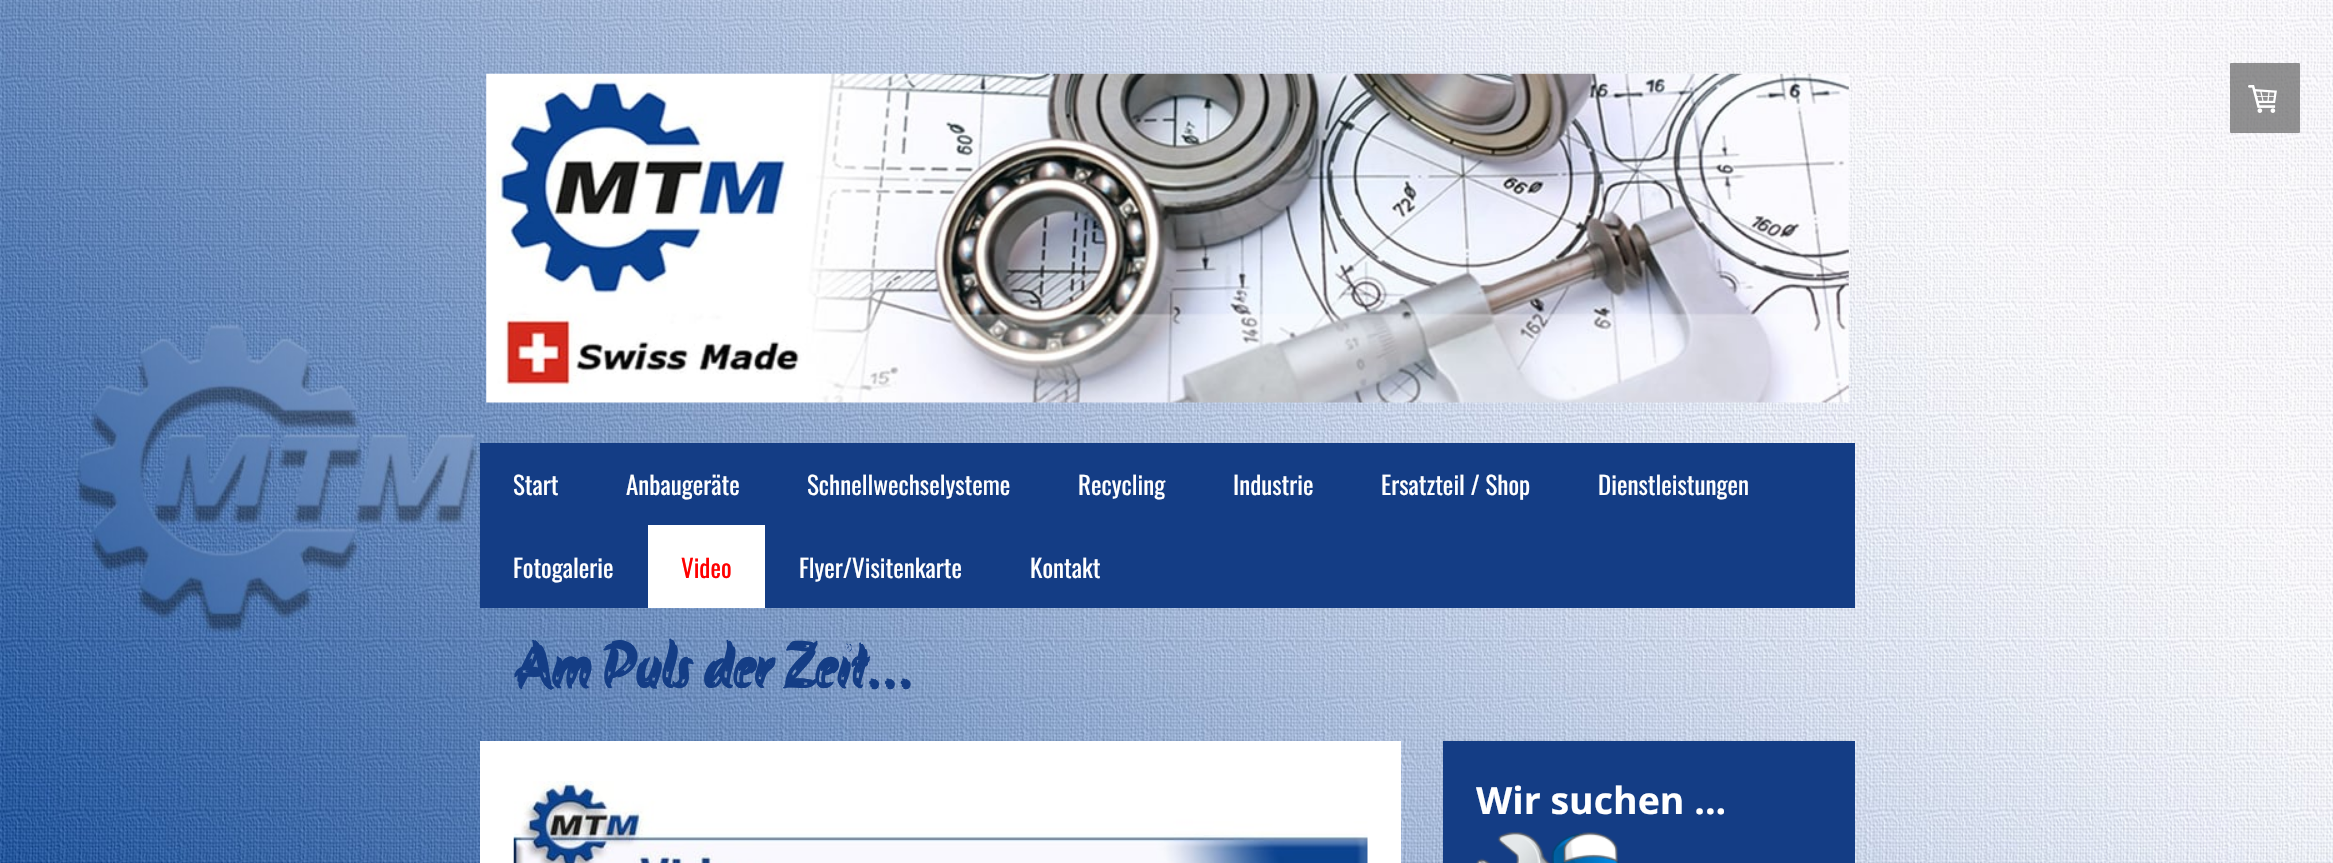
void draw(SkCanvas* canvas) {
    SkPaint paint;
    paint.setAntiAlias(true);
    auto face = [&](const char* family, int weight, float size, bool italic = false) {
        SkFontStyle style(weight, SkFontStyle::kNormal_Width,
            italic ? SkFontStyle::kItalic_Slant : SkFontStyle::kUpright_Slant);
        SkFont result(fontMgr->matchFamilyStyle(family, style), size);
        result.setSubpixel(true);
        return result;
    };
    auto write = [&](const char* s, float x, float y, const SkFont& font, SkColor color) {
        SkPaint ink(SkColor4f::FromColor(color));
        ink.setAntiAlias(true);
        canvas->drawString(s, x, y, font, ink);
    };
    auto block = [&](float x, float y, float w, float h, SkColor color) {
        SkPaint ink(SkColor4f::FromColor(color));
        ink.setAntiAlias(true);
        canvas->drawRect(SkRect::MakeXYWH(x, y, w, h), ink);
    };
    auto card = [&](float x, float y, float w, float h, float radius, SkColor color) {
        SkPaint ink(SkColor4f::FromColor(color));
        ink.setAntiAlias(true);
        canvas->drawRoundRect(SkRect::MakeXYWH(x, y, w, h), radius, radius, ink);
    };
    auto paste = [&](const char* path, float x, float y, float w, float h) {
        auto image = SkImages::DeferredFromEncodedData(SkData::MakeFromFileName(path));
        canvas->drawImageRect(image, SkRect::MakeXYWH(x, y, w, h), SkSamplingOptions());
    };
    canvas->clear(SK_ColorWHITE);
    paste("pic1.png", 0, 0, 2333, 863);
    card(2230, 63, 70, 70, 1, SkColorSetARGB(179, 100, 100, 100));
    paste("pic2.png", 2248, 85, 29, 28);
    paste("pic3.png", 486, 73, 1363, 330);
    block(480, 443, 1375, 165, SkColorSetRGB(20, 61, 133));
    auto kFont1 = face("Oswald", 400, 25);
    write("Start", 513, 495, kFont1, SK_ColorWHITE);
    write("Anbaugeräte", 626, 495, kFont1, SK_ColorWHITE);
    write("Schnellwechselysteme", 807, 495, kFont1, SK_ColorWHITE);
    write("Recycling", 1078, 495, kFont1, SK_ColorWHITE);
    write("Industrie", 1233, 495, kFont1, SK_ColorWHITE);
    write("Ersatzteil / Shop", 1381, 495, kFont1, SK_ColorWHITE);
    write("Dienstleistungen", 1598, 495, kFont1, SK_ColorWHITE);
    write("Fotogalerie", 513, 578, kFont1, SK_ColorWHITE);
    block(648, 525, 117, 83, SK_ColorWHITE);
    write("Video", 681, 578, kFont1, SkColorSetRGB(255, 0, 0));
    write("Flyer/Visitenkarte", 799, 578, kFont1, SK_ColorWHITE);
    write("Kontakt", 1030, 578, kFont1, SK_ColorWHITE);
    auto kFont2 = face("Akronim", 700, 62.5f);
    write("Am Puls der Zeit...", 513, 688, kFont2, SkColorSetRGB(20, 61, 133));
    block(480, 741, 921, 122, SK_ColorWHITE);
    paste("pic4.png", 513, 781, 855, 82);
    block(1443, 741, 412, 122, SkColorSetRGB(20, 61, 133));
    auto kFont3 = face("Open Sans", 700, 37.5f);
    write("Wir suchen ...", 1476, 814, kFont3, SK_ColorWHITE);
    paste("pic5.png", 1476, 832, 144, 31);
}
